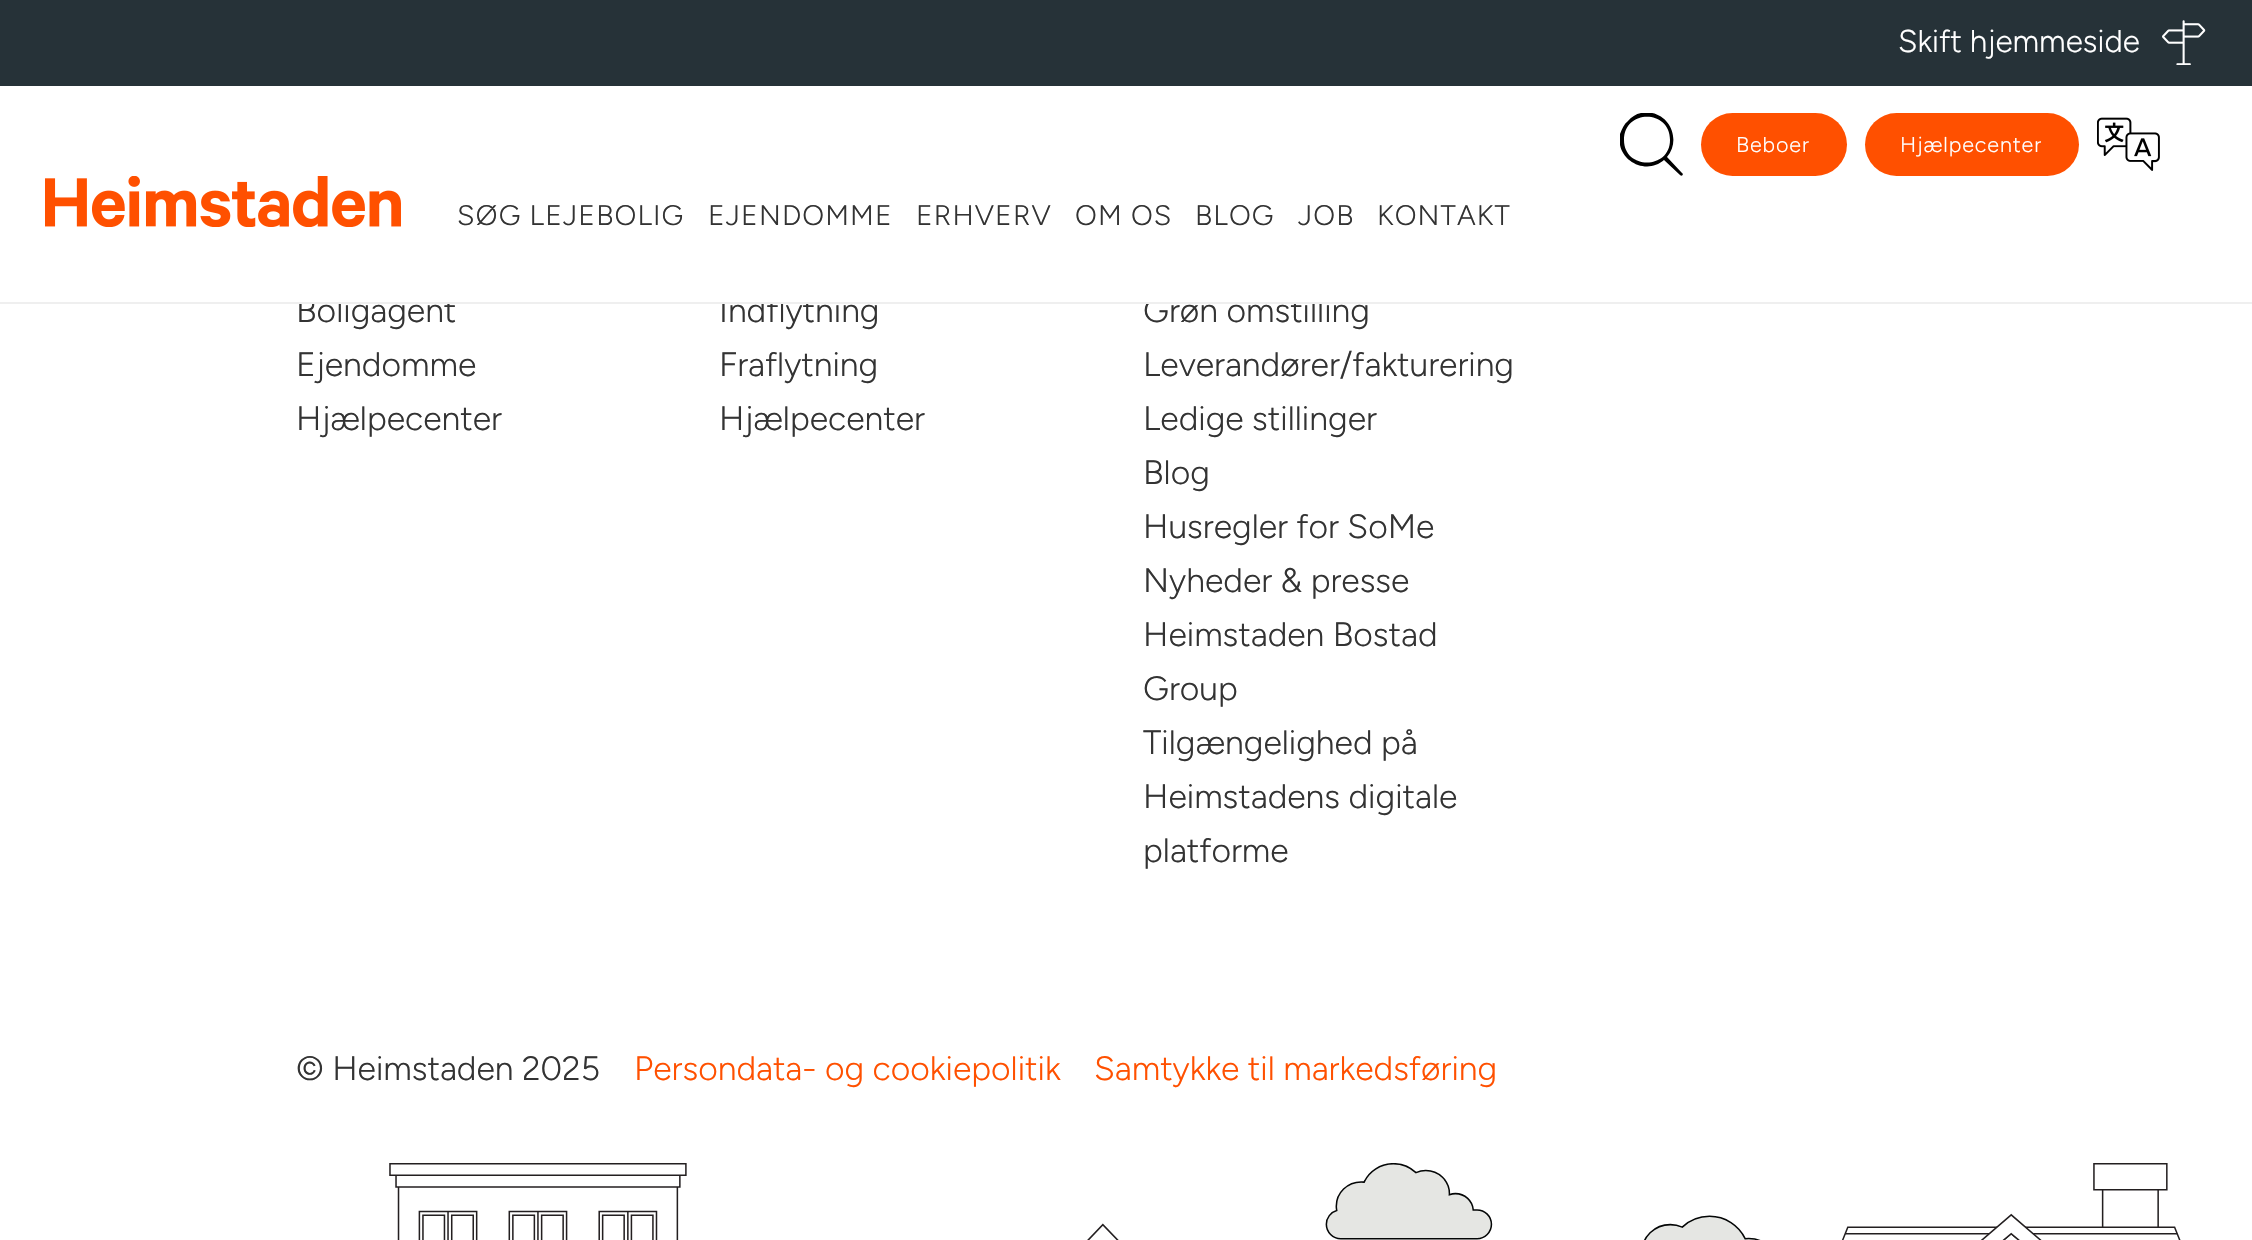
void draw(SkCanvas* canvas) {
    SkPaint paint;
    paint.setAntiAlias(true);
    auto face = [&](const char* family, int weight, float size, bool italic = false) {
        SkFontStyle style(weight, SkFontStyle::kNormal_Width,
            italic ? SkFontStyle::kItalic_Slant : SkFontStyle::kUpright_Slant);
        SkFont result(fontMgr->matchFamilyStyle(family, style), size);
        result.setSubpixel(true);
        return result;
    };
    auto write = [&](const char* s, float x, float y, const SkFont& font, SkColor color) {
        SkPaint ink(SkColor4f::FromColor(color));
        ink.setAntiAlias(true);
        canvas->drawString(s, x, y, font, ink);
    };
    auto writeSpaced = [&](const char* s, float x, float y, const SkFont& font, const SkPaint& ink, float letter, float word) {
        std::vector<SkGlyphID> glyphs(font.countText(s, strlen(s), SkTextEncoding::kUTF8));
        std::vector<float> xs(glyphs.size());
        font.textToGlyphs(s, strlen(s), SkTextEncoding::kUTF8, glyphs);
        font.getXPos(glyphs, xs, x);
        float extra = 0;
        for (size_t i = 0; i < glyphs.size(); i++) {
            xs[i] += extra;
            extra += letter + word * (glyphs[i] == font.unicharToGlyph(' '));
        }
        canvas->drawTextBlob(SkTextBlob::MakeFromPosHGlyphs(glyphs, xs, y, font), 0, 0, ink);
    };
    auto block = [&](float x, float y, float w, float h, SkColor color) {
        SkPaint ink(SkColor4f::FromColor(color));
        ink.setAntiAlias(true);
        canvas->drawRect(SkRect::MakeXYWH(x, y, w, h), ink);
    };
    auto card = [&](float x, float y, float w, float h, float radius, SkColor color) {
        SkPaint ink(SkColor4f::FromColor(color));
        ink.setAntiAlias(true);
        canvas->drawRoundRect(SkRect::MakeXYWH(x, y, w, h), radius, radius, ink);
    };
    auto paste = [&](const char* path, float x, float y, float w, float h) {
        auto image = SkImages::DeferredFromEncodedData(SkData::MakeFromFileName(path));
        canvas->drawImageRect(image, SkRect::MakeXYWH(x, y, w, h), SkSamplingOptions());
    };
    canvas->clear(SK_ColorWHITE);
    auto kFont1 = face("Figtree", 300, 33.75f);
    write("Boligagent", 296, 322, kFont1, SkColorSetRGB(51, 51, 51));
    write("Indflytning", 719, 322, kFont1, SkColorSetRGB(51, 51, 51));
    write("Grøn omstilling", 1143, 322, kFont1, SkColorSetRGB(51, 51, 51));
    block(299, 298, 1031, 4, SK_ColorWHITE);
    block(0, 302, 2252, 2, SkColorSetRGB(239, 239, 239));
    block(0, 0, 2252, 86, SkColorSetRGB(38, 50, 56));
    paste("pic1.png", 2162, 20, 44, 45);
    auto kFont2 = face("Figtree", 300, 31.5f);
    write("Skift hjemmeside", 1898, 52, kFont2, SK_ColorWHITE);
    paste("pic2.png", 45, 176, 356, 51);
    canvas->save();
    canvas->clipRect(SkRect::MakeXYWH(1620, 113, 63, 63));
    paint.setColor(SK_ColorBLACK);
    canvas->drawPath(SkPathBuilder().moveTo(1682, 173).lineTo(1667, 157).cubicTo(1683, 138, 1667, 108, 1641, 113).cubicTo(1636, 114, 1631, 117, 1628, 121).cubicTo(1624, 124, 1622, 129, 1620, 134).cubicTo(1615, 160, 1646, 176, 1664, 160).lineTo(1680, 175).cubicTo(1682, 177, 1684, 174, 1682, 173).close().moveTo(1624, 140).cubicTo(1624, 109, 1670, 109, 1670, 140).cubicTo(1670, 170, 1624, 170, 1624, 140).close().detach(), paint);
    canvas->restore();
    card(1701, 113, 146, 63, 31.5f, SkColorSetRGB(255, 80, 0));
    auto kFont3 = face("Figtree", 300, 21.5f);
    paint.setColor(SK_ColorWHITE);
    writeSpaced("Beboer", 1736, 152, kFont3, paint, 0.9f, 0);
    card(1865, 113, 214, 63, 31.5f, SkColorSetRGB(255, 80, 0));
    writeSpaced("Hjælpecenter", 1900, 152, kFont3, paint, 0.9f, 0);
    paste("pic3.png", 2097, 117, 63, 54);
    auto kFont4 = face("Figtree", 300, 28.25f);
    paint.setColor(SkColorSetRGB(51, 51, 51));
    writeSpaced("SØG LEJEBOLIG", 457, 225, kFont4, paint, 1.1f, 0);
    writeSpaced("EJENDOMME", 708, 225, kFont4, paint, 1.1f, 0);
    writeSpaced("ERHVERV", 916, 225, kFont4, paint, 1.1f, 0);
    writeSpaced("OM OS", 1075, 225, kFont4, paint, 1.1f, 0);
    writeSpaced("BLOG", 1195, 225, kFont4, paint, 1.1f, 0);
    writeSpaced("JOB", 1298, 225, kFont4, paint, 1.1f, 0);
    writeSpaced("KONTAKT", 1377, 225, kFont4, paint, 1.1f, 0);
    write("Ejendomme", 296, 376, kFont1, SkColorSetRGB(51, 51, 51));
    write("Hjælpecenter", 296, 430, kFont1, SkColorSetRGB(51, 51, 51));
    write("Fraflytning", 719, 376, kFont1, SkColorSetRGB(51, 51, 51));
    write("Hjælpecenter", 719, 430, kFont1, SkColorSetRGB(51, 51, 51));
    write("Leverandører/fakturering", 1143, 376, kFont1, SkColorSetRGB(51, 51, 51));
    write("Ledige stillinger", 1143, 430, kFont1, SkColorSetRGB(51, 51, 51));
    write("Blog", 1143, 484, kFont1, SkColorSetRGB(51, 51, 51));
    write("Husregler for SoMe", 1143, 538, kFont1, SkColorSetRGB(51, 51, 51));
    write("Nyheder & presse", 1143, 592, kFont1, SkColorSetRGB(51, 51, 51));
    write("Heimstaden Bostad", 1143, 646, kFont1, SkColorSetRGB(51, 51, 51));
    write("Group", 1143, 700, kFont1, SkColorSetRGB(51, 51, 51));
    write("Tilgængelighed på", 1143, 754, kFont1, SkColorSetRGB(51, 51, 51));
    write("Heimstadens digitale", 1143, 808, kFont1, SkColorSetRGB(51, 51, 51));
    write("platforme", 1143, 862, kFont1, SkColorSetRGB(51, 51, 51));
    write("© Heimstaden 2025", 296, 1080, kFont1, SkColorSetRGB(51, 51, 51));
    write("Persondata- og cookiepolitik", 634, 1080, kFont1, SkColorSetRGB(255, 80, 0));
    write("Samtykke til markedsføring", 1094, 1080, kFont1, SkColorSetRGB(255, 80, 0));
    paste("pic4.png", 389, 1163, 1792, 77);
}
